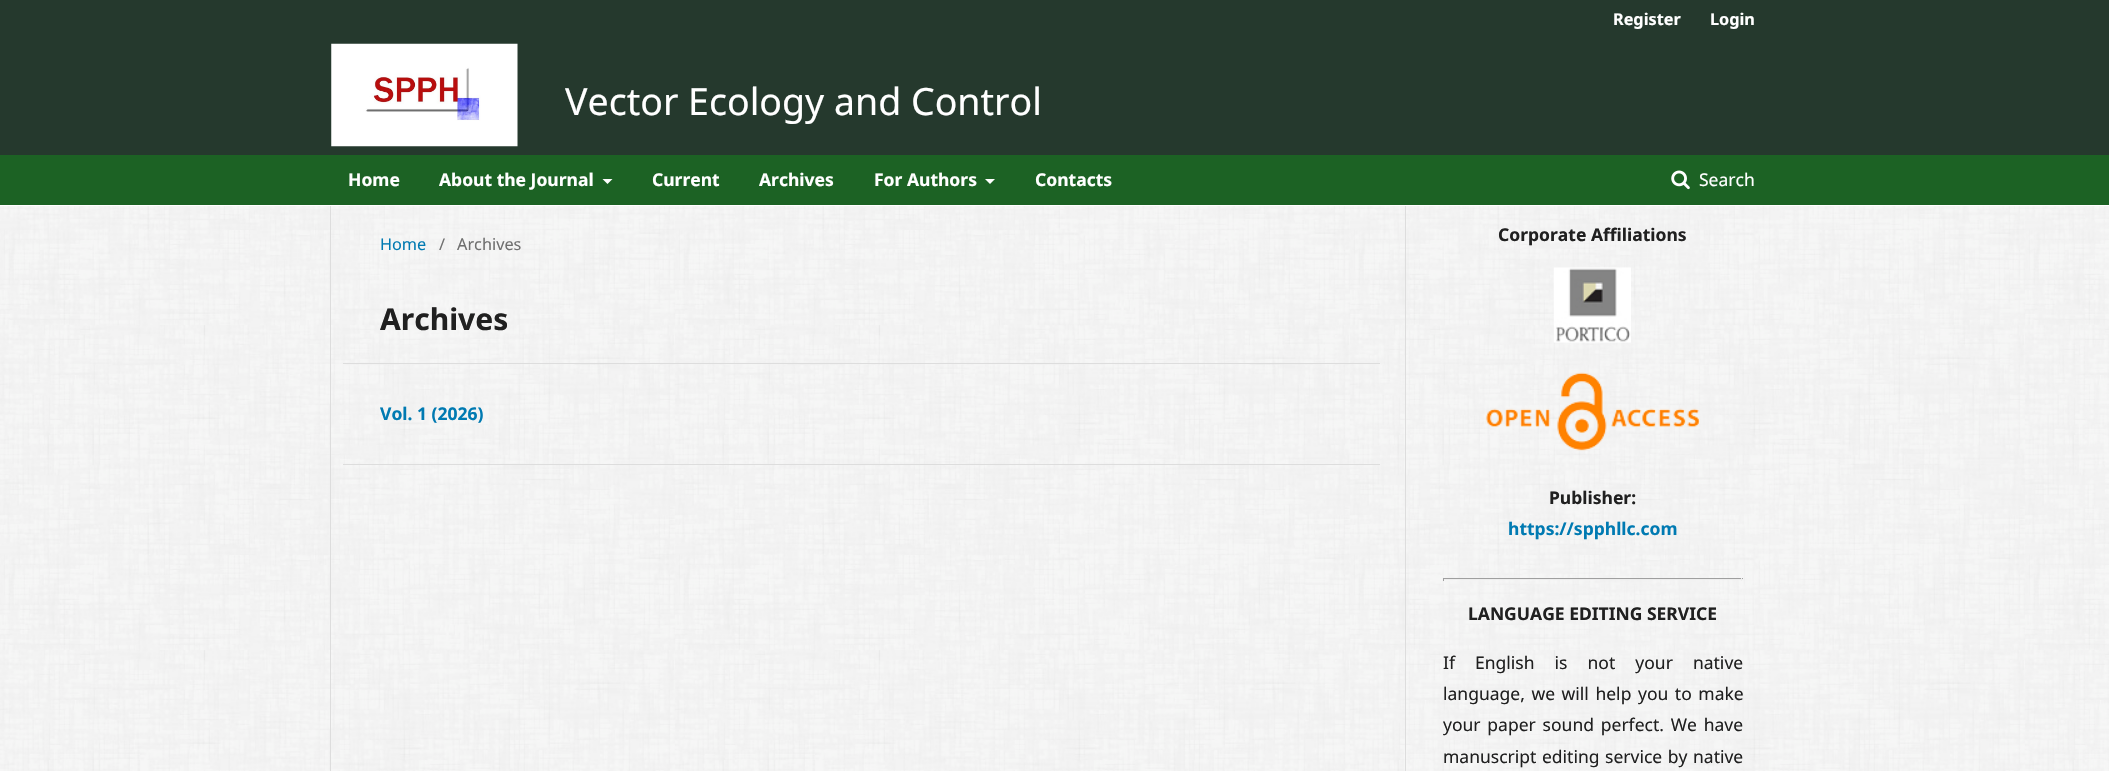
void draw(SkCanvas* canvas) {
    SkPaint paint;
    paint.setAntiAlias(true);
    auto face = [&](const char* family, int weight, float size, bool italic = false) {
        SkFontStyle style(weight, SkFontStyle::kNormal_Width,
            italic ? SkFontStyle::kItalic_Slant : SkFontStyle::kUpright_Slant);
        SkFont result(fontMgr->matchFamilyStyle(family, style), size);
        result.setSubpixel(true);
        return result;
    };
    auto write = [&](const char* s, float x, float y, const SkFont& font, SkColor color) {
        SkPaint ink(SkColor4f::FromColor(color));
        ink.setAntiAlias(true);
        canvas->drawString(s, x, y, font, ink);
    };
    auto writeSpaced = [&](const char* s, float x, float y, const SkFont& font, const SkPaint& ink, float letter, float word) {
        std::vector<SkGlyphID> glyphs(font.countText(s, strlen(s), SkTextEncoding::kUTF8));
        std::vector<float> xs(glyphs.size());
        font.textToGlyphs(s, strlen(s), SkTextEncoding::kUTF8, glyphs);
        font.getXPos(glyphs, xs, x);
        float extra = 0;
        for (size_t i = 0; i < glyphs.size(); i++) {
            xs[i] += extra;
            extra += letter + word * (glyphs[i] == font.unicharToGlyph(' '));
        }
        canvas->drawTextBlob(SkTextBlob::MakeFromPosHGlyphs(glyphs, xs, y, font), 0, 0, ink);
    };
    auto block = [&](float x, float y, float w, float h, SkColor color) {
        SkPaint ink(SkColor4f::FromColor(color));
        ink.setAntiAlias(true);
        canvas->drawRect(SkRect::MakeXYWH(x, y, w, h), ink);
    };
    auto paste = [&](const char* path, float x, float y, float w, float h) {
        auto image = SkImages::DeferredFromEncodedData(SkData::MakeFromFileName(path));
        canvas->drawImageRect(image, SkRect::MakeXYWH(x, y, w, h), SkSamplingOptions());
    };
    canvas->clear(SK_ColorWHITE);
    paste("pic1.png", 0, 206, 2109, 565);
    block(0, 0, 2109, 155, SkColorSetRGB(37, 57, 45));
    auto kFont1 = face("Noto Sans", 700, 16.25f);
    write("Register", 1613, 25, kFont1, SK_ColorWHITE);
    write("Login", 1710, 25, kFont1, SK_ColorWHITE);
    paste("pic2.png", 331, 43, 187, 104);
    auto kFont2 = face("Noto Sans", 400, 37.5f);
    write("Vector Ecology and Control", 565, 115, kFont2, SK_ColorWHITE);
    block(0, 155, 2109, 50, SkColorSetRGB(28, 98, 36));
    auto kFont3 = face("Noto Sans", 700, 17.5f);
    write("Home", 348, 186, kFont3, SK_ColorWHITE);
    write("About the Journal", 439, 186, kFont3, SK_ColorWHITE);
    paint.setColor(SK_ColorWHITE);
    canvas->drawPath(SkPathBuilder().moveTo(602.5f, 179).lineTo(612.5f, 179).lineTo(607.5f, 184).close().detach(), paint);
    write("Current", 652, 186, kFont3, SK_ColorWHITE);
    write("Archives", 759, 186, kFont3, SK_ColorWHITE);
    write("For Authors", 874, 186, kFont3, SK_ColorWHITE);
    canvas->drawPath(SkPathBuilder().moveTo(985, 179).lineTo(995, 179).lineTo(990, 184).close().detach(), paint);
    write("Contacts", 1035, 186, kFont3, SK_ColorWHITE);
    paste("pic3.png", 1671, 170, 19, 20);
    auto kFont4 = face("Noto Sans", 400, 17.5f);
    write("Search", 1699, 186, kFont4, SK_ColorWHITE);
    block(330, 206, 1, 565, SkColorSetRGB(221, 221, 221));
    auto kFont5 = face("Noto Sans", 400, 16.25f);
    write("Home", 380, 250, kFont5, SkColorSetRGB(0, 122, 178));
    write("/", 439, 250, kFont5, SkColorSetRGB(111, 111, 111));
    write("Archives", 457, 250, kFont5, SkColorSetRGB(111, 111, 111));
    auto kFont6 = face("Noto Sans", 700, 30);
    write("Archives", 380, 330, kFont6, SkColorSetRGB(32, 32, 32));
    block(343, 363, 1037, 1, SkColorSetRGB(221, 221, 221));
    block(343, 464, 1037, 1, SkColorSetRGB(221, 221, 221));
    write("Vol. 1 (2026)", 380, 420, kFont3, SkColorSetRGB(0, 122, 178));
    block(1405, 206, 1, 565, SkColorSetRGB(221, 221, 221));
    write("Corporate Affiliations", 1498, 241, kFont3, SkColorSetRGB(32, 32, 32));
    paste("pic4.png", 1553, 267, 78, 76);
    paste("pic5.png", 1486, 372, 214, 79);
    write("Publisher:", 1549, 504, kFont3, SkColorSetRGB(32, 32, 32));
    write("https://spphllc.com", 1508, 535, kFont3, SkColorSetRGB(0, 122, 178));
    block(1443, 578, 300, 1, SkColorSetRGB(159, 159, 159));
    block(1741, 578, 1, 3, SkColorSetRGB(238, 238, 238));
    block(1443, 579, 300, 1, SkColorSetRGB(238, 238, 238));
    block(1443, 578, 1, 3, SkColorSetRGB(159, 159, 159));
    write("LANGUAGE EDITING SERVICE", 1468, 620, kFont3, SkColorSetRGB(32, 32, 32));
    paint.setColor(SkColorSetRGB(32, 32, 32));
    writeSpaced("If English is not your native", 1443, 669, kFont4, paint, 0, 15.5f);
    writeSpaced("language, we will help you to make", 1443, 700, kFont4, paint, 0, 2);
    writeSpaced("your paper sound perfect. We have", 1443, 731, kFont4, paint, 0, 2.25f);
    writeSpaced("manuscript editing service by native", 1443, 763, kFont4, paint, 0, 1);
}
